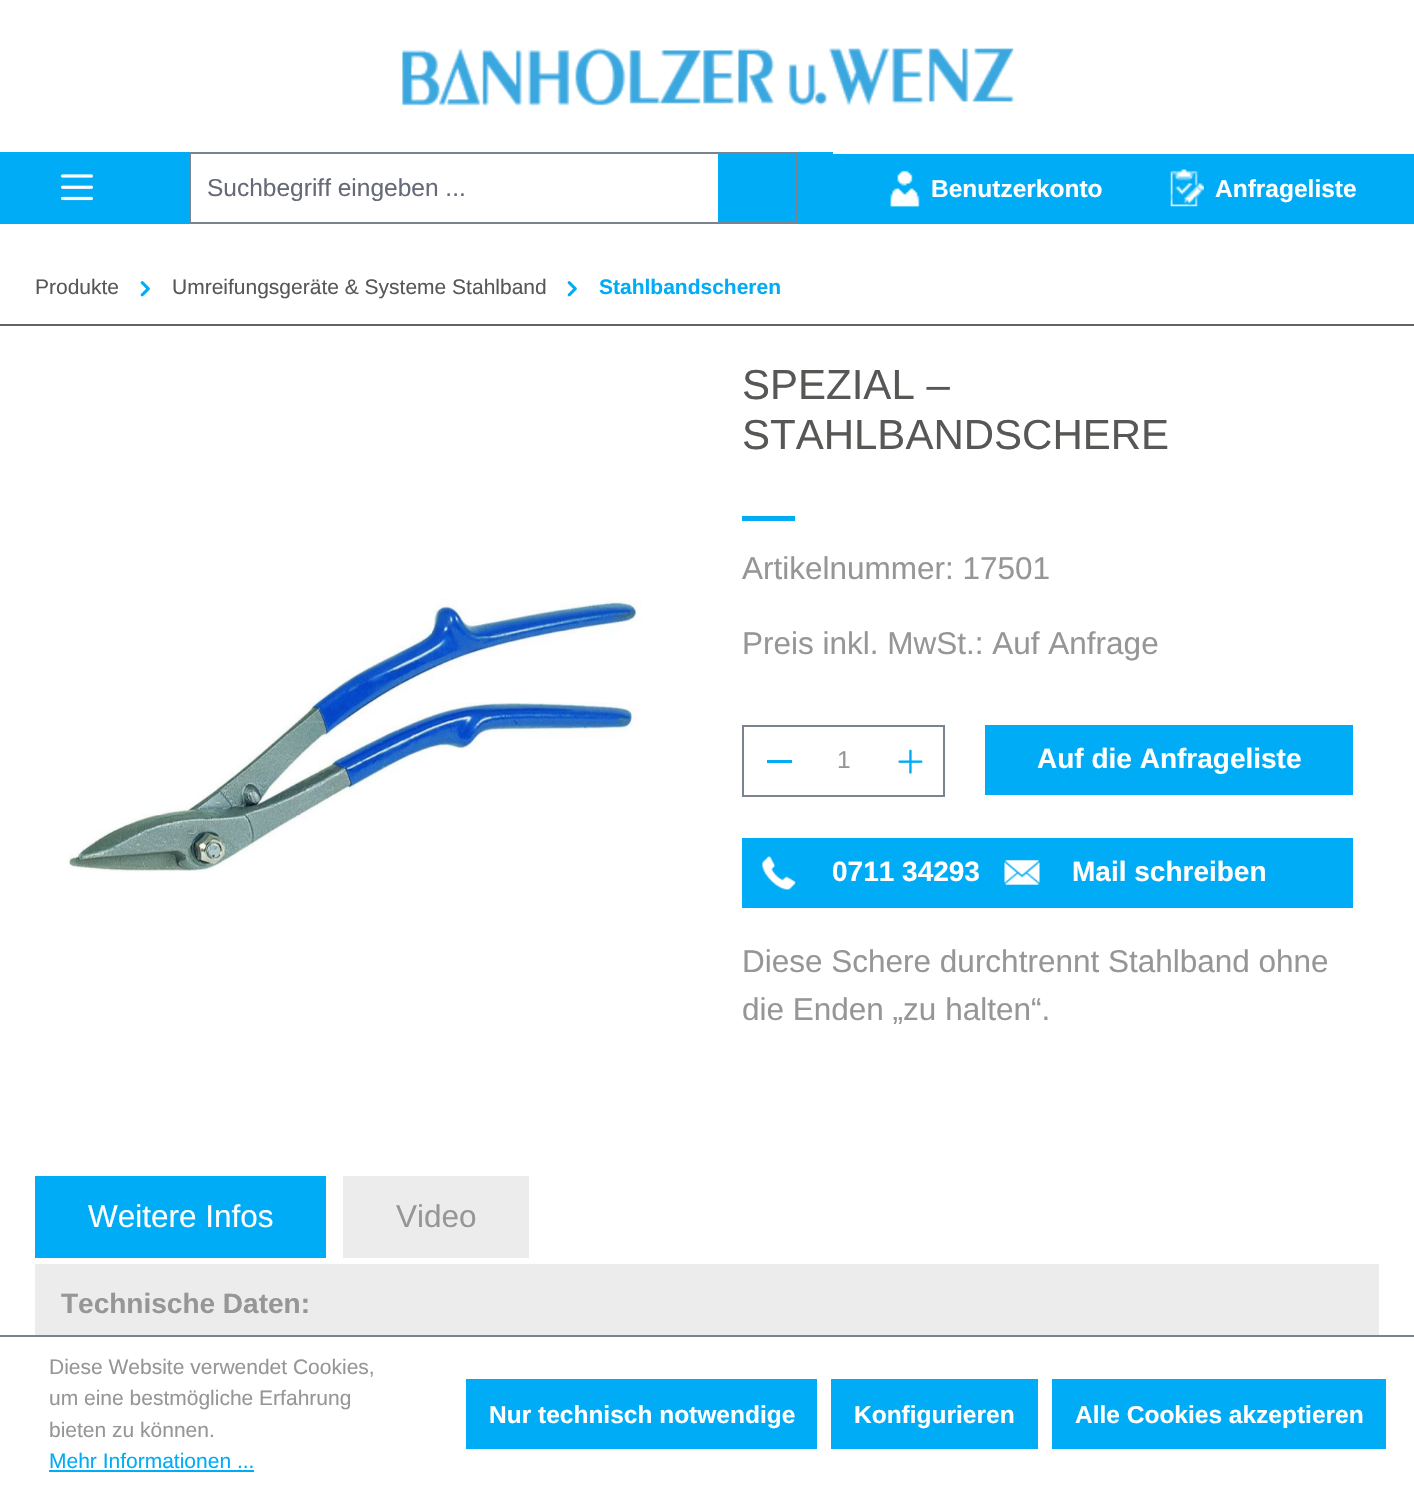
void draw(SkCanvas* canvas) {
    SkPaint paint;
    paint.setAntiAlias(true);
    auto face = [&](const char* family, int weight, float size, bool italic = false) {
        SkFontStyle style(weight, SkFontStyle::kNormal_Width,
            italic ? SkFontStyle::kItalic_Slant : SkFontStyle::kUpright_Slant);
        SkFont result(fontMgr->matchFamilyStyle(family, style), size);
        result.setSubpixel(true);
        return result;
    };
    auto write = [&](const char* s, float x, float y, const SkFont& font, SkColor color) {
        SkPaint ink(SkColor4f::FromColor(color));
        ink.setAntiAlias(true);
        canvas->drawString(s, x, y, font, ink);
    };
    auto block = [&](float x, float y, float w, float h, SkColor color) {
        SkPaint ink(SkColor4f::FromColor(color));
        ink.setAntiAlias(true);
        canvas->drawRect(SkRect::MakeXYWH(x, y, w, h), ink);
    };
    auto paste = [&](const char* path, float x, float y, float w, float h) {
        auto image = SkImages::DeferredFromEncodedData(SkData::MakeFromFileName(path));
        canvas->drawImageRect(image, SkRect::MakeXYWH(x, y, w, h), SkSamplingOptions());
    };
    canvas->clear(SK_ColorWHITE);
    paste("pic1.png", 402, 48, 612, 58);
    block(0, 152, 833, 72, SkColorSetRGB(0, 172, 245));
    paste("pic2.png", 61, 174, 32, 27);
    block(191, 154, 527, 68, SK_ColorWHITE);
    block(189, 152, 609, 2, SkColorSetRGB(121, 132, 144));
    block(189, 222, 529, 2, SkColorSetRGB(121, 132, 144));
    block(189, 152, 2, 72, SkColorSetRGB(121, 132, 144));
    auto kFont1 = face("Liberation Sans", 400, 24.5f);
    write("Suchbegriff eingeben ...", 207, 196, kFont1, SkColorSetRGB(102, 105, 119));
    block(796, 152, 2, 72, SkColorSetRGB(121, 132, 144));
    block(716, 222, 82, 2, SkColorSetRGB(121, 132, 144));
    block(833, 154, 581, 70, SkColorSetRGB(0, 172, 245));
    paste("pic3.png", 890, 170, 30, 37);
    auto kFont2 = face("Liberation Sans", 700, 24.5f);
    write("Benutzerkonto", 931, 197, kFont2, SK_ColorWHITE);
    paste("pic4.png", 1170, 169, 34, 38);
    write("Anfrageliste", 1215, 197, kFont2, SK_ColorWHITE);
    block(0, 324, 1414, 2, SkColorSetRGB(100, 99, 99));
    auto kFont3 = face("Liberation Sans", 400, 21);
    write("Produkte", 35, 294, kFont3, SkColorSetRGB(87, 87, 86));
    paste("pic5.png", 140, 281, 10, 16);
    write("Umreifungsgeräte & Systeme Stahlband", 172, 294, kFont3, SkColorSetRGB(87, 87, 86));
    paste("pic5.png", 567, 281, 10, 16);
    auto kFont4 = face("Liberation Sans", 700, 21);
    write("Stahlbandscheren", 599, 294, kFont4, SkColorSetRGB(0, 172, 245));
    paste("pic6.png", 68, 598, 574, 274);
    auto kFont5 = face("Liberation Sans", 400, 42);
    write("SPEZIAL –", 742, 399, kFont5, SkColorSetRGB(87, 87, 86));
    write("STAHLBANDSCHERE", 742, 449, kFont5, SkColorSetRGB(87, 87, 86));
    block(742, 516, 53, 5, SkColorSetRGB(0, 172, 245));
    auto kFont6 = face("Liberation Sans", 400, 31.5f);
    write("Artikelnummer: 17501", 742, 579, kFont6, SkColorSetRGB(151, 150, 150));
    write("Preis inkl. MwSt.: Auf Anfrage", 742, 654, kFont6, SkColorSetRGB(151, 150, 150));
    block(742, 725, 203, 2, SkColorSetRGB(121, 132, 144));
    block(742, 795, 135, 2, SkColorSetRGB(121, 132, 144));
    block(742, 725, 2, 71, SkColorSetRGB(121, 132, 144));
    block(767, 760, 25, 3, SkColorSetRGB(0, 172, 245));
    write("1", 837, 768, kFont1, SkColorSetRGB(151, 150, 150));
    block(943, 725, 2, 71, SkColorSetRGB(121, 132, 144));
    block(875, 795, 70, 2, SkColorSetRGB(121, 132, 144));
    paste("pic7.png", 898, 749, 25, 25);
    block(985, 725, 368, 70, SkColorSetRGB(0, 172, 245));
    auto kFont7 = face("Liberation Sans", 700, 28);
    write("Auf die Anfrageliste", 1037, 768, kFont7, SK_ColorWHITE);
    block(742, 838, 611, 70, SkColorSetRGB(0, 172, 245));
    paste("pic8.png", 762, 856, 34, 34);
    write("0711 34293", 832, 881, kFont7, SK_ColorWHITE);
    paste("pic9.png", 1004, 860, 36, 25);
    write("Mail schreiben", 1072, 881, kFont7, SK_ColorWHITE);
    write("Diese Schere durchtrennt Stahlband ohne", 742, 972, kFont6, SkColorSetRGB(151, 150, 150));
    write("die Enden „zu halten“.", 742, 1020, kFont6, SkColorSetRGB(151, 150, 150));
    block(35, 1176, 291, 82, SkColorSetRGB(0, 172, 245));
    write("Weitere Infos", 88, 1227, kFont6, SK_ColorWHITE);
    block(343, 1176, 186, 82, SkColorSetRGB(236, 236, 236));
    write("Video", 396, 1227, kFont6, SkColorSetRGB(151, 150, 150));
    block(35, 1264, 1344, 71, SkColorSetRGB(236, 236, 236));
    write("Technische Daten:", 61, 1313, kFont7, SkColorSetRGB(151, 150, 150));
    block(0, 1335, 1414, 2, SkColorSetRGB(121, 132, 144));
    write("Diese Website verwendet Cookies,", 49, 1374, kFont3, SkColorSetRGB(151, 150, 150));
    write("um eine bestmögliche Erfahrung", 49, 1405, kFont3, SkColorSetRGB(151, 150, 150));
    write("bieten zu können.", 49, 1437, kFont3, SkColorSetRGB(151, 150, 150));
    write("Mehr Informationen ...", 49, 1468, kFont3, SkColorSetRGB(0, 172, 245));
    block(49, 1470, 205, 2, SkColorSetRGB(0, 172, 245));
    block(466, 1379, 351, 70, SkColorSetRGB(0, 172, 245));
    write("Nur technisch notwendige", 489, 1423, kFont2, SK_ColorWHITE);
    block(831, 1379, 207, 70, SkColorSetRGB(0, 172, 245));
    write("Konfigurieren", 854, 1423, kFont2, SK_ColorWHITE);
    block(1052, 1379, 334, 70, SkColorSetRGB(0, 172, 245));
    write("Alle Cookies akzeptieren", 1075, 1423, kFont2, SK_ColorWHITE);
}
